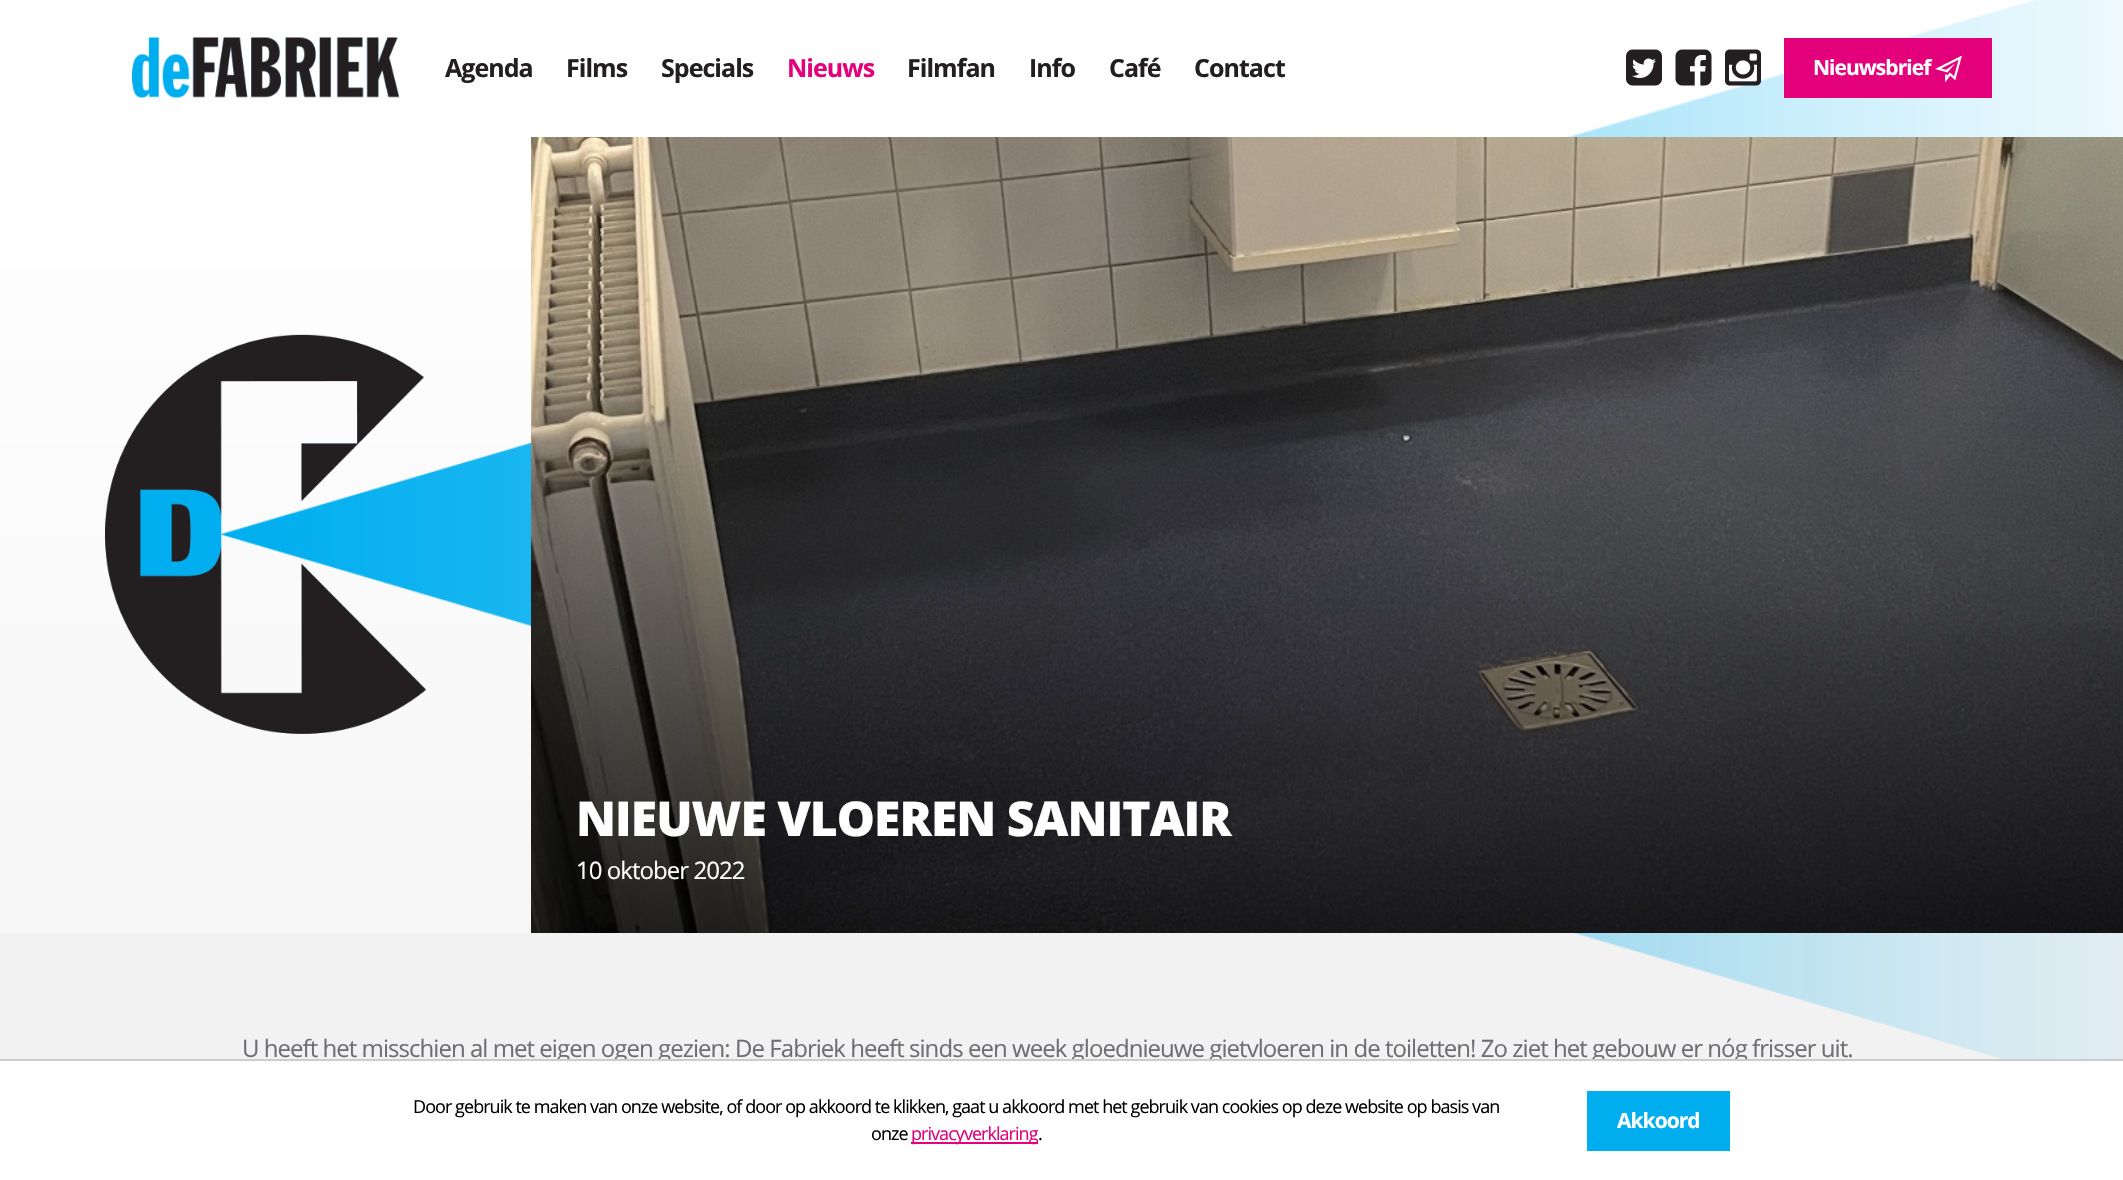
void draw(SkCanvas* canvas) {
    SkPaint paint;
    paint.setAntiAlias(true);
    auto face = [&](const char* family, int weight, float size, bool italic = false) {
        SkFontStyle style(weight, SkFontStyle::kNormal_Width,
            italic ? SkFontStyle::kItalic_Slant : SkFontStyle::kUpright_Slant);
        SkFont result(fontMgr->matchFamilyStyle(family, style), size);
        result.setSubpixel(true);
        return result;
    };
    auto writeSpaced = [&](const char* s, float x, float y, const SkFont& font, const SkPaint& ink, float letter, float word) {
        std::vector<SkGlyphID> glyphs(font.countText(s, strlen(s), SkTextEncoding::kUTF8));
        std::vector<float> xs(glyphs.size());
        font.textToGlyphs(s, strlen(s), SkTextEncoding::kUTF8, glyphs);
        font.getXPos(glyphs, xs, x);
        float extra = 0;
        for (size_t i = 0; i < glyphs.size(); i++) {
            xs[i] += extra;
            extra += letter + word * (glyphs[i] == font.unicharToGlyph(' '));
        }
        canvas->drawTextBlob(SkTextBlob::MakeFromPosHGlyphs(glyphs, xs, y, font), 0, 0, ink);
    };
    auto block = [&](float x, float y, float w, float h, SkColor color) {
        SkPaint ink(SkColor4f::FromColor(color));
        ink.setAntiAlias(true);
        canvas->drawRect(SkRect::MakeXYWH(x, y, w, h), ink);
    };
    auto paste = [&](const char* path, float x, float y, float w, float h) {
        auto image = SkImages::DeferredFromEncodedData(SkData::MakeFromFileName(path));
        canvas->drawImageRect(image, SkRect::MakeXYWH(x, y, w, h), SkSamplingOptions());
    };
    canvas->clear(SkColorSetRGB(242, 242, 242));
    block(0, 0, 2123, 137, SK_ColorWHITE);
    paste("pic1.png", 1567, 0, 556, 137);
    paste("pic2.png", 132, 37, 267, 61);
    auto kFont1 = face("Open Sans", 700, 25);
    paint.setColor(SkColorSetRGB(35, 31, 32));
    writeSpaced("Agenda", 445, 77, kFont1, paint, -0.96f, 0);
    writeSpaced("Films", 566, 77, kFont1, paint, -0.96f, 0);
    writeSpaced("Specials", 661, 77, kFont1, paint, -0.96f, 0);
    paint.setColor(SkColorSetRGB(227, 0, 122));
    writeSpaced("Nieuws", 787, 77, kFont1, paint, -0.96f, 0);
    paint.setColor(SkColorSetRGB(35, 31, 32));
    writeSpaced("Filmfan", 907, 77, kFont1, paint, -0.96f, 0);
    writeSpaced("Info", 1029, 77, kFont1, paint, -0.96f, 0);
    writeSpaced("Café", 1109, 77, kFont1, paint, -0.96f, 0);
    writeSpaced("Contact", 1194, 77, kFont1, paint, -0.96f, 0);
    paste("pic3.png", 1626, 49, 36, 37);
    paste("pic4.png", 1675, 49, 37, 37);
    paste("pic5.png", 1725, 49, 36, 37);
    block(1784, 38, 208, 60, SkColorSetRGB(227, 0, 122));
    auto kFont2 = face("Open Sans", 700, 21);
    paint.setColor(SK_ColorWHITE);
    writeSpaced("Nieuwsbrief", 1813, 75, kFont2, paint, -0.96f, 0);
    paste("pic6.png", 1935, 56, 27, 27);
    {
        const SkColor colors[] = {SK_ColorWHITE, SkColorSetRGB(246, 246, 246)};
        const float stops[] = {0, 1};
        const SkPoint ends[] = {{1062, 136}, {1062, 933}};
        paint.setShader(SkGradientShader::MakeLinear(ends, colors, stops, 2, SkTileMode::kClamp));
        paint.setAlpha(255);
    }
    canvas->drawRect(SkRect::MakeXYWH(0, 137, 531, 796), paint);
    paste("pic7.png", 105, 334, 321, 400);
    paste("pic8.png", 221, 442, 1902, 617);
    paste("pic9.png", 531, 137, 1592, 796);
    auto kFont3 = face("Open Sans", 800, 48);
    paint.setShader(nullptr);
    paint.setColor(SK_ColorWHITE);
    writeSpaced("NIEUWE VLOEREN SANITAIR", 576, 836, kFont3, paint, -0.96f, 0);
    auto kFont4 = face("Open Sans", 400, 24);
    writeSpaced("10 oktober 2022", 576, 879, kFont4, paint, -0.96f, 0);
    paint.setColor(SkColorSetRGB(110, 111, 115));
    writeSpaced("U heeft het misschien al met eigen ogen gezien: De Fabriek heeft sinds een week gloednieuwe gietvloeren in de toiletten! Zo ziet het gebouw er nóg frisser uit.", 242, 1057, kFont4, paint, -0.96f, 0);
    block(0, 1061, 2123, 119, SK_ColorWHITE);
    block(0, 1059, 2123, 2, SkColorSetRGB(204, 204, 204));
    auto kFont5 = face("Open Sans", 400, 18);
    paint.setColor(SK_ColorBLACK);
    writeSpaced("Door gebruik te maken van onze website, of door op akkoord te klikken, gaat u akkoord met het gebruik van cookies op deze website op basis van", 413, 1113, kFont5, paint, -0.96f, 0);
    writeSpaced("onze", 871, 1140, kFont5, paint, -0.96f, 0);
    block(911, 1142, 127, 2, SkColorSetRGB(227, 0, 122));
    paint.setColor(SkColorSetRGB(227, 0, 122));
    writeSpaced("privacyverklaring", 911, 1140, kFont5, paint, -0.96f, 0);
    paint.setColor(SK_ColorBLACK);
    writeSpaced(".", 1038, 1140, kFont5, paint, -0.96f, 0);
    block(1587, 1091, 143, 60, SkColorSetRGB(0, 174, 239));
    paint.setColor(SK_ColorWHITE);
    writeSpaced("Akkoord", 1617, 1128, kFont2, paint, -0.96f, 0);
}
